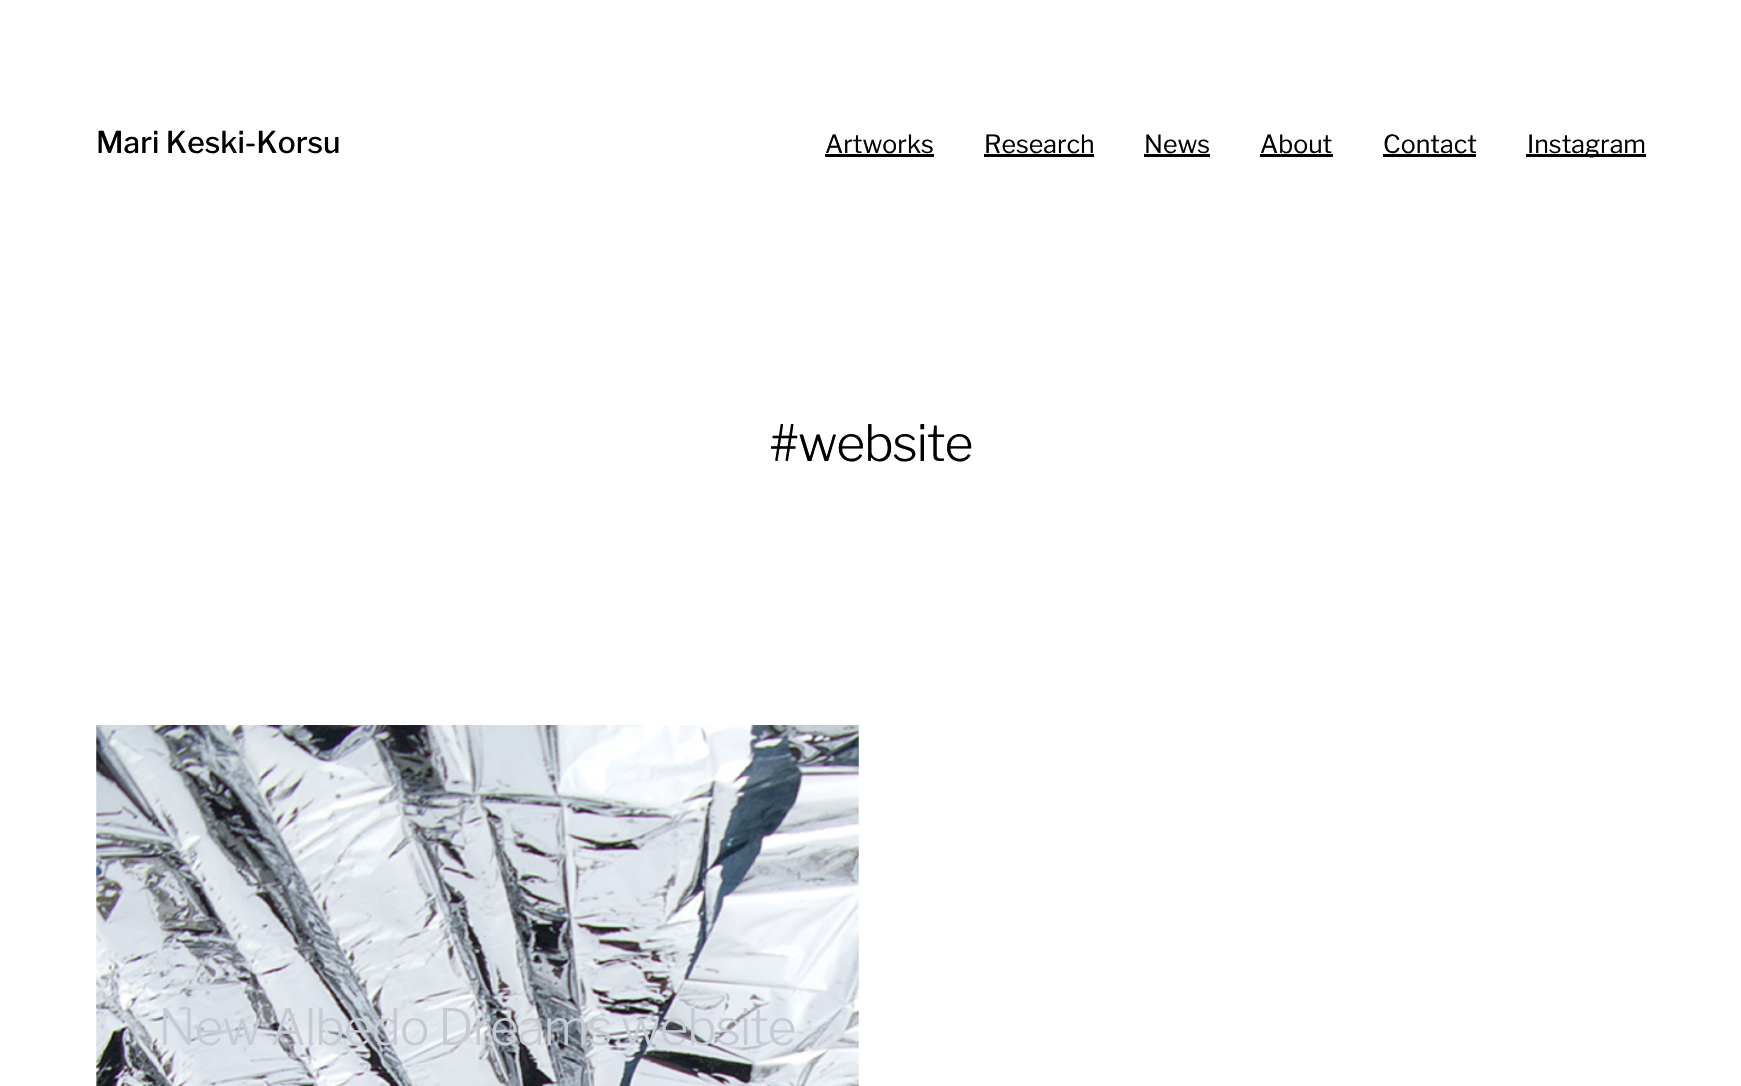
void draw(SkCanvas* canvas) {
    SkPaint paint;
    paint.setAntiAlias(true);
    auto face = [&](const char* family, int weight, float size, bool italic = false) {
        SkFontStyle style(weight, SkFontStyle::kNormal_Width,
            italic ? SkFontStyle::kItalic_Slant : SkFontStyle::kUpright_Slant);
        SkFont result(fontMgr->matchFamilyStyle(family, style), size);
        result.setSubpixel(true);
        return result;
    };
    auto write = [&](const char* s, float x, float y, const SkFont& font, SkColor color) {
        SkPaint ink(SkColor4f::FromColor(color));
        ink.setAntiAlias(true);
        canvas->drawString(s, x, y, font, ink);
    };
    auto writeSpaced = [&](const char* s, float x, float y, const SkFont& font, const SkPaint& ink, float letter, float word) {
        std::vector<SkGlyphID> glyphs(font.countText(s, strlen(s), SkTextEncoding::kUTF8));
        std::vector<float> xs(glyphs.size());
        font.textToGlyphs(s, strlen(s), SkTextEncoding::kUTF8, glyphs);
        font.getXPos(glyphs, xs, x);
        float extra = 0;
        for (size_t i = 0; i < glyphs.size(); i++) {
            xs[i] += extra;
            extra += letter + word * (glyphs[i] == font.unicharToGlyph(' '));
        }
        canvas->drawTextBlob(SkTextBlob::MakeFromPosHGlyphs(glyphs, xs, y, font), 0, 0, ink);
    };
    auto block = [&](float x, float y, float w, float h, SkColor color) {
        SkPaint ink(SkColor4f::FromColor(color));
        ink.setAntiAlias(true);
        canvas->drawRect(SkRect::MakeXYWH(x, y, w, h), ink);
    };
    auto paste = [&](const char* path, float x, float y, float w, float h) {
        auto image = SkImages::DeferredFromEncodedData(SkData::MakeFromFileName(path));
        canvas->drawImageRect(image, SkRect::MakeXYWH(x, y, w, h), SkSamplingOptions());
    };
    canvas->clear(SK_ColorWHITE);
    auto kFont1 = face("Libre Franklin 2", 100, 30);
    write("Mari Keski-Korsu", 96, 153, kFont1, SK_ColorBLACK);
    auto kFont2 = face("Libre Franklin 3", 100, 25);
    write("Artworks", 825, 153, kFont2, SK_ColorBLACK);
    block(825, 154, 109, 3, SK_ColorBLACK);
    write("Research", 984, 153, kFont2, SK_ColorBLACK);
    block(984, 154, 110, 3, SK_ColorBLACK);
    write("News", 1144, 153, kFont2, SK_ColorBLACK);
    block(1144, 154, 66, 3, SK_ColorBLACK);
    write("About", 1260, 153, kFont2, SK_ColorBLACK);
    block(1260, 154, 73, 3, SK_ColorBLACK);
    write("Contact", 1383, 153, kFont2, SK_ColorBLACK);
    block(1383, 154, 93, 3, SK_ColorBLACK);
    block(1526, 154, 120, 3, SK_ColorBLACK);
    write("Instagram", 1527, 153, kFont2, SK_ColorBLACK);
    auto kFont3 = face("Libre Franklin", 100, 50);
    paint.setColor(SK_ColorBLACK);
    writeSpaced("#website", 769, 461, kFont3, paint, -1.25f, 0);
    paste("pic1.png", 96, 725, 763, 361);
    paint.setColor(SkColorSetRGB(198, 203, 211));
    writeSpaced("New Albedo Dreams website", 158, 1045, kFont3, paint, -1.25f, 0);
}
